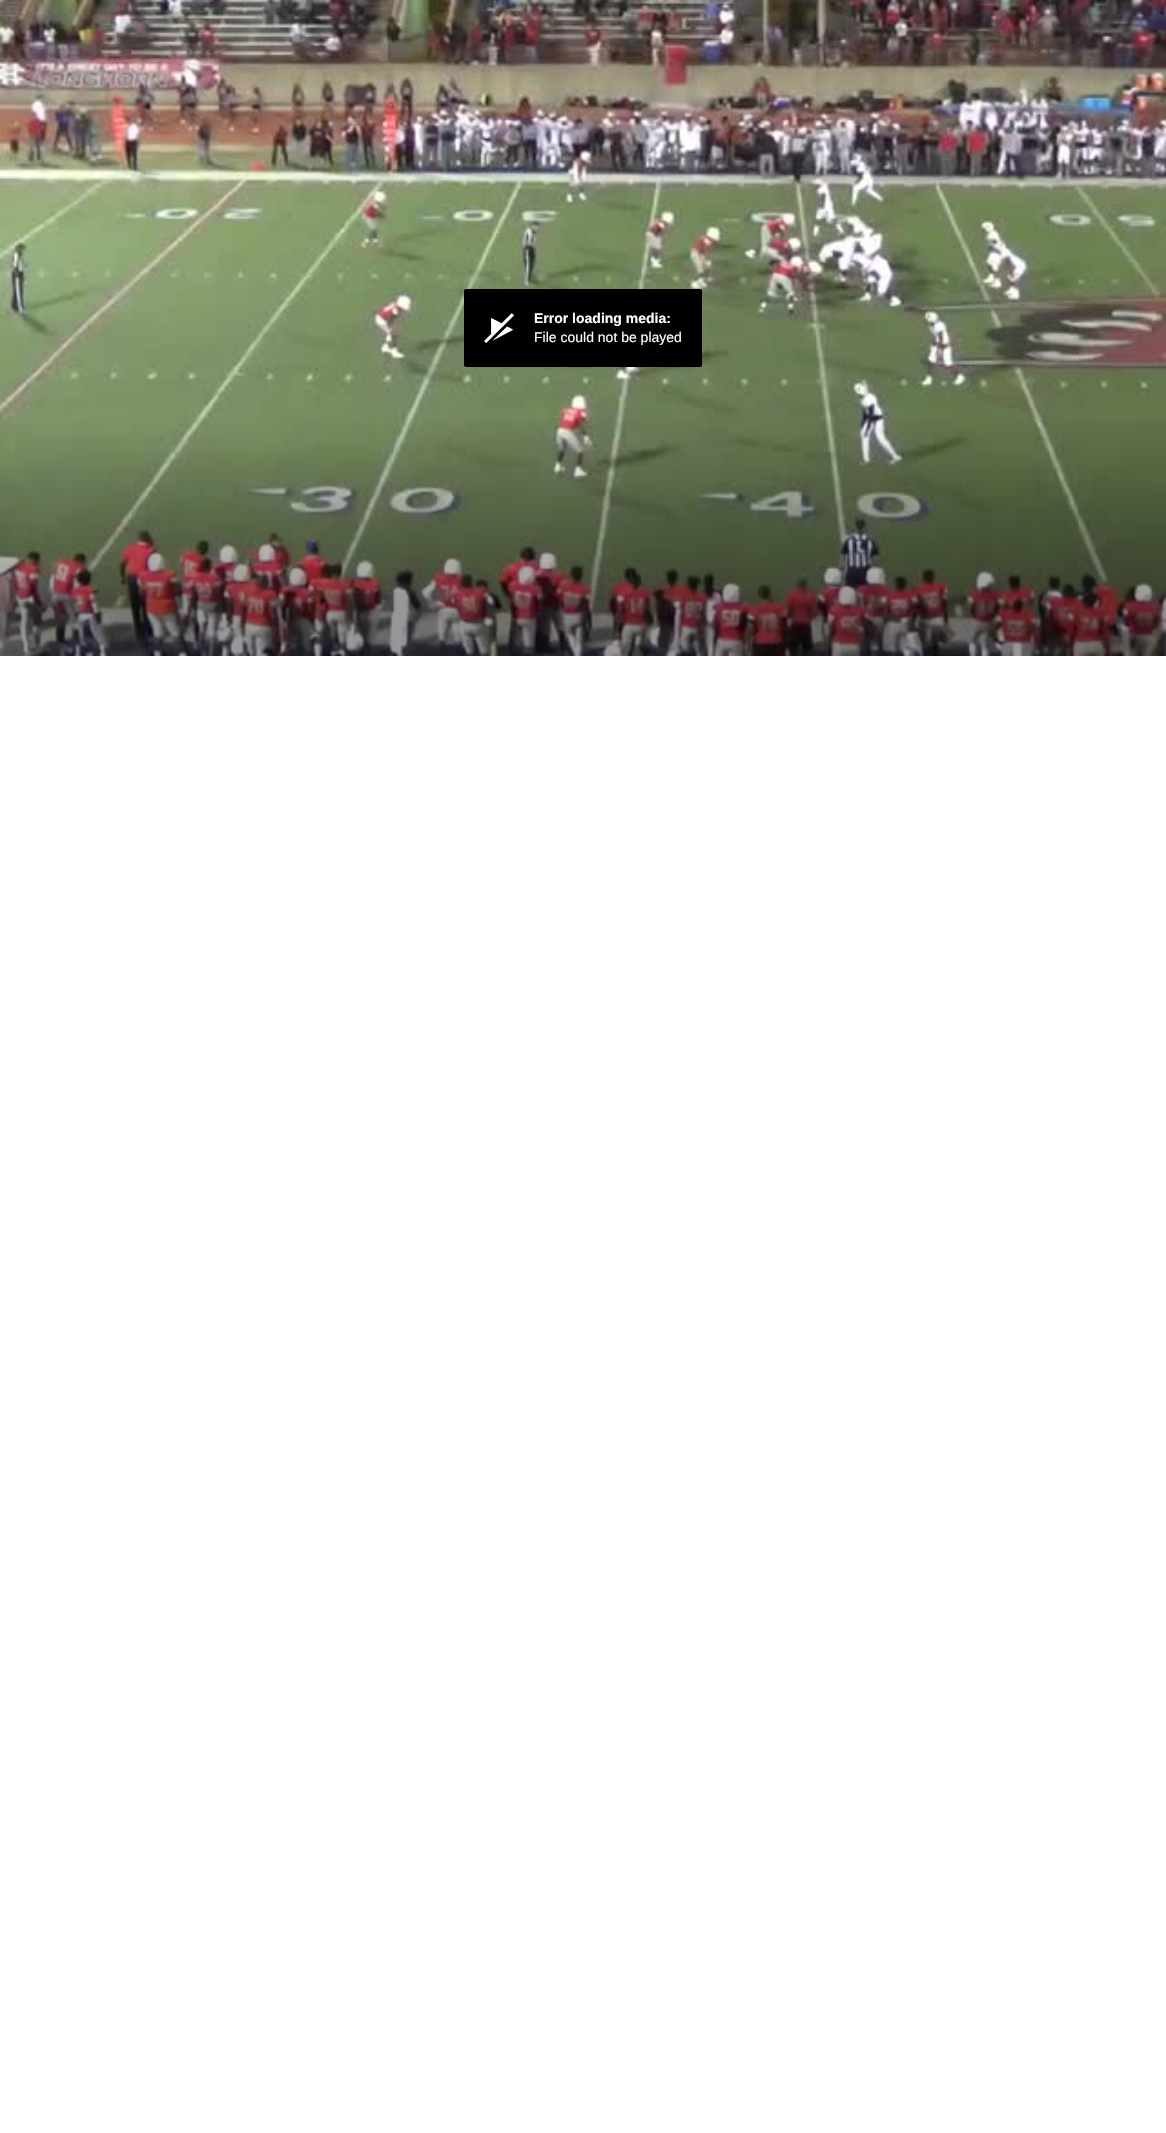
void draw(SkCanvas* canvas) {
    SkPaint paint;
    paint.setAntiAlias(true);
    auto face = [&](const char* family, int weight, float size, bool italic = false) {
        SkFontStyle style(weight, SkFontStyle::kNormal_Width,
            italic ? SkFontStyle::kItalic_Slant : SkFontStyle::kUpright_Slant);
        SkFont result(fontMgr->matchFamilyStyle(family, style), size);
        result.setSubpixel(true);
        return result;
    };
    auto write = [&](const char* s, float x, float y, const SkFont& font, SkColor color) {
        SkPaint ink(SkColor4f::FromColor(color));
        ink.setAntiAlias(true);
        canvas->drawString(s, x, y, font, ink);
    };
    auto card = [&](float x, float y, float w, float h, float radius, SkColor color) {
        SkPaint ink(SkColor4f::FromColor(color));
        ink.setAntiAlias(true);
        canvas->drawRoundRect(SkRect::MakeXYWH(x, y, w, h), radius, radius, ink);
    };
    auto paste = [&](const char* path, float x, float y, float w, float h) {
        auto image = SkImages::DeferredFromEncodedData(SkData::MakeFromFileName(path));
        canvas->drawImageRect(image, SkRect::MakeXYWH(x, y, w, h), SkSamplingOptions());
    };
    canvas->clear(SK_ColorWHITE);
    paste("pic1.png", 0, 0, 1166, 656);
    card(464, 289, 238, 78, 2, SK_ColorBLACK);
    paste("pic2.png", 484, 313, 30, 30);
    auto kFont1 = face("Liberation Sans", 700, 14);
    write("Error loading media:", 534, 323, kFont1, SK_ColorWHITE);
    auto kFont2 = face("Liberation Sans", 400, 14);
    write("File could not be played", 534, 342, kFont2, SK_ColorWHITE);
}
